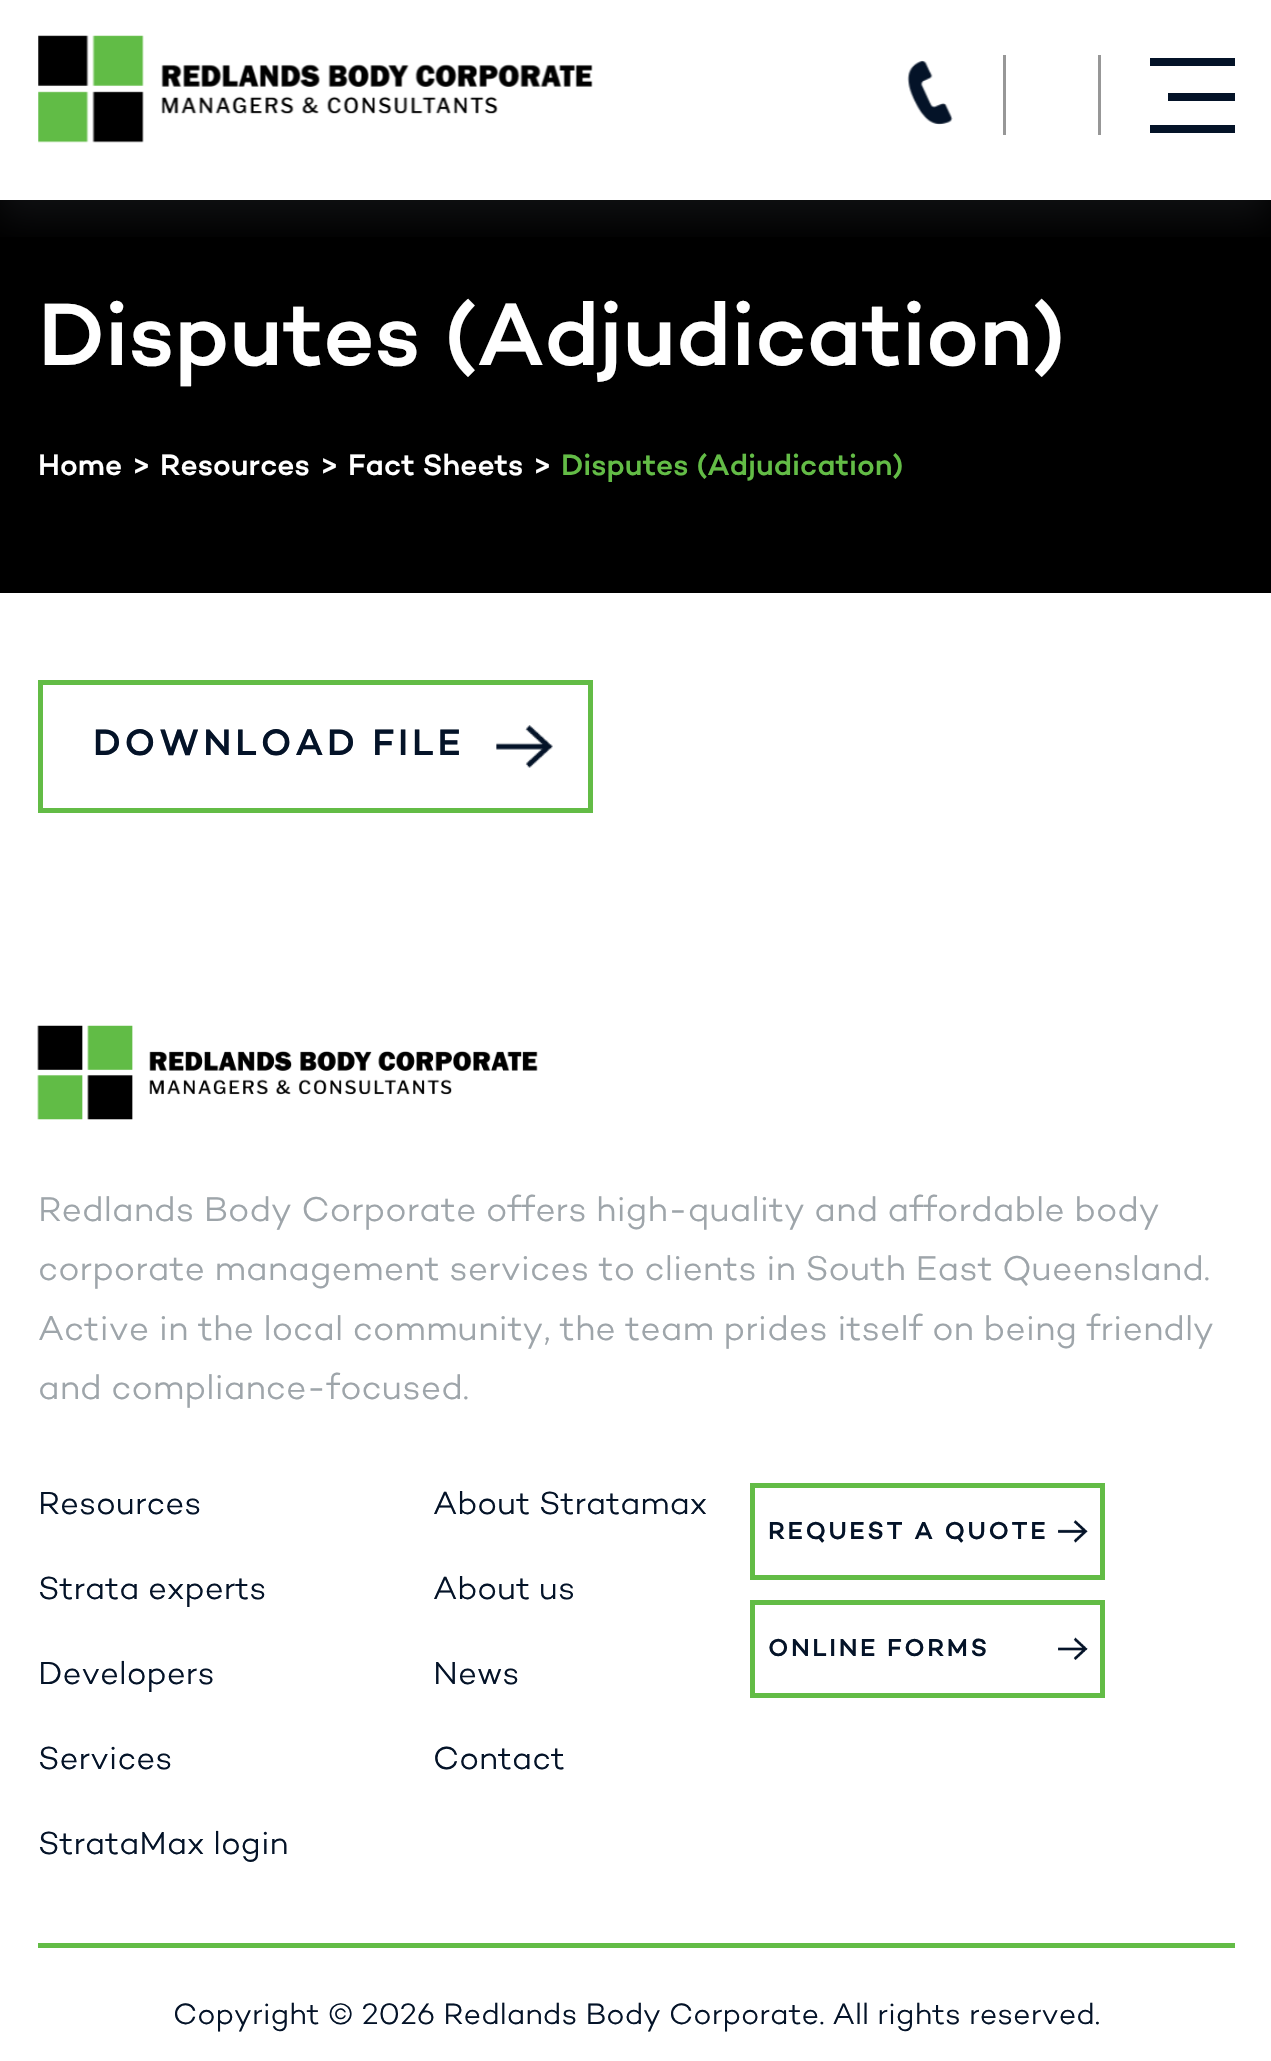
void draw(SkCanvas* canvas) {
    SkPaint paint;
    paint.setAntiAlias(true);
    auto face = [&](const char* family, int weight, float size, bool italic = false) {
        SkFontStyle style(weight, SkFontStyle::kNormal_Width,
            italic ? SkFontStyle::kItalic_Slant : SkFontStyle::kUpright_Slant);
        SkFont result(fontMgr->matchFamilyStyle(family, style), size);
        result.setSubpixel(true);
        return result;
    };
    auto write = [&](const char* s, float x, float y, const SkFont& font, SkColor color) {
        SkPaint ink(SkColor4f::FromColor(color));
        ink.setAntiAlias(true);
        canvas->drawString(s, x, y, font, ink);
    };
    auto writeSpaced = [&](const char* s, float x, float y, const SkFont& font, const SkPaint& ink, float letter, float word) {
        std::vector<SkGlyphID> glyphs(font.countText(s, strlen(s), SkTextEncoding::kUTF8));
        std::vector<float> xs(glyphs.size());
        font.textToGlyphs(s, strlen(s), SkTextEncoding::kUTF8, glyphs);
        font.getXPos(glyphs, xs, x);
        float extra = 0;
        for (size_t i = 0; i < glyphs.size(); i++) {
            xs[i] += extra;
            extra += letter + word * (glyphs[i] == font.unicharToGlyph(' '));
        }
        canvas->drawTextBlob(SkTextBlob::MakeFromPosHGlyphs(glyphs, xs, y, font), 0, 0, ink);
    };
    auto block = [&](float x, float y, float w, float h, SkColor color) {
        SkPaint ink(SkColor4f::FromColor(color));
        ink.setAntiAlias(true);
        canvas->drawRect(SkRect::MakeXYWH(x, y, w, h), ink);
    };
    auto paste = [&](const char* path, float x, float y, float w, float h) {
        auto image = SkImages::DeferredFromEncodedData(SkData::MakeFromFileName(path));
        canvas->drawImageRect(image, SkRect::MakeXYWH(x, y, w, h), SkSamplingOptions());
    };
    canvas->clear(SK_ColorWHITE);
    block(0, 200, 1271, 393, SK_ColorBLACK);
    canvas->save();
    canvas->clipRect(SkRect::MakeXYWH(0, 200, 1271, 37));
    paint.setColor(SkColorSetARGB(36, 105, 116, 124));
    paint.setMaskFilter(SkMaskFilter::MakeBlur(kNormal_SkBlurStyle, 17.5f));
    canvas->drawRect(SkRect::MakeXYWH(-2, 18, 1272, 200), paint);
    paint.setMaskFilter(nullptr);
    canvas->restore();
    paste("pic1.png", 38, 35, 555, 108);
    paste("pic2.png", 907, 60, 46, 65);
    block(1003, 55, 3, 80, SkColorSetRGB(151, 151, 151));
    block(1098, 55, 3, 80, SkColorSetRGB(151, 151, 151));
    block(1150, 58, 85, 8, SkColorSetRGB(4, 19, 40));
    block(1168, 93, 67, 8, SkColorSetRGB(4, 19, 40));
    block(1150, 125, 85, 8, SkColorSetRGB(4, 19, 40));
    auto kFont1 = face("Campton", 500, 90);
    write("Disputes (Adjudication)", 38, 365, kFont1, SK_ColorWHITE);
    auto kFont2 = face("Campton", 500, 30);
    write("Home", 38, 475, kFont2, SK_ColorWHITE);
    write(">", 133, 475, kFont2, SK_ColorWHITE);
    write("Resources", 160, 475, kFont2, SK_ColorWHITE);
    write(">", 321, 475, kFont2, SK_ColorWHITE);
    write("Fact Sheets", 348, 475, kFont2, SK_ColorWHITE);
    write(">", 534, 475, kFont2, SK_ColorWHITE);
    write("Disputes (Adjudication)", 561, 475, kFont2, SkColorSetRGB(99, 188, 70));
    paint.setStyle(SkPaint::kStroke_Style);
    paint.setStrokeWidth(5);
    paint.setColor(SkColorSetRGB(99, 188, 70));
    canvas->drawRect(SkRect::MakeXYWH(40.5f, 682.5f, 550, 128), paint);
    auto kFont3 = face("Campton", 500, 37.5f);
    paint.setStyle(SkPaint::kFill_Style);
    paint.setColor(SkColorSetRGB(4, 19, 40));
    writeSpaced("DOWNLOAD FILE", 93, 755, kFont3, paint, 3.75f, 0);
    paste("pic3.png", 496, 725, 57, 43);
    paste("pic4.png", 37, 1025, 501, 95);
    auto kFont4 = face("Campton", 300, 35);
    write("Redlands Body Corporate offers high-quality and affordable body", 38, 1221, kFont4, SkColorSetRGB(158, 165, 170));
    write("corporate management services to clients in South East Queensland.", 38, 1280, kFont4, SkColorSetRGB(158, 165, 170));
    write("Active in the local community, the team prides itself on being friendly", 38, 1340, kFont4, SkColorSetRGB(158, 165, 170));
    write("and compliance-focused.", 38, 1399, kFont4, SkColorSetRGB(158, 165, 170));
    auto kFont5 = face("Campton", 300, 32.5f);
    write("Resources", 38, 1514, kFont5, SkColorSetRGB(4, 19, 40));
    write("Strata experts", 38, 1599, kFont5, SkColorSetRGB(4, 19, 40));
    write("Developers", 38, 1684, kFont5, SkColorSetRGB(4, 19, 40));
    write("Services", 38, 1769, kFont5, SkColorSetRGB(4, 19, 40));
    write("StrataMax login", 38, 1854, kFont5, SkColorSetRGB(4, 19, 40));
    write("About Stratamax", 433, 1514, kFont5, SkColorSetRGB(4, 19, 40));
    write("About us", 433, 1599, kFont5, SkColorSetRGB(4, 19, 40));
    write("News", 433, 1684, kFont5, SkColorSetRGB(4, 19, 40));
    write("Contact", 433, 1769, kFont5, SkColorSetRGB(4, 19, 40));
    paint.setStyle(SkPaint::kStroke_Style);
    paint.setColor(SkColorSetRGB(99, 188, 70));
    canvas->drawRect(SkRect::MakeXYWH(752.5f, 1485.5f, 350, 92), paint);
    auto kFont6 = face("Campton", 500, 25);
    paint.setStyle(SkPaint::kFill_Style);
    paint.setColor(SkColorSetRGB(4, 19, 40));
    writeSpaced("REQUEST A QUOTE", 768, 1539, kFont6, paint, 2.5f, 0);
    paste("pic5.png", 1058, 1520, 30, 23);
    paint.setStyle(SkPaint::kStroke_Style);
    paint.setColor(SkColorSetRGB(99, 188, 70));
    canvas->drawRect(SkRect::MakeXYWH(752.5f, 1602.5f, 350, 93), paint);
    paint.setStyle(SkPaint::kFill_Style);
    paint.setColor(SkColorSetRGB(4, 19, 40));
    writeSpaced("ONLINE FORMS", 768, 1656, kFont6, paint, 2.5f, 0);
    paste("pic6.png", 1058, 1637, 30, 23);
    block(38, 1943, 1197, 5, SkColorSetRGB(99, 188, 70));
    auto kFont7 = face("Campton", 300, 30);
    write("Copyright © 2026 Redlands Body Corporate. All rights reserved.", 173, 2024, kFont7, SkColorSetRGB(4, 19, 40));
}
